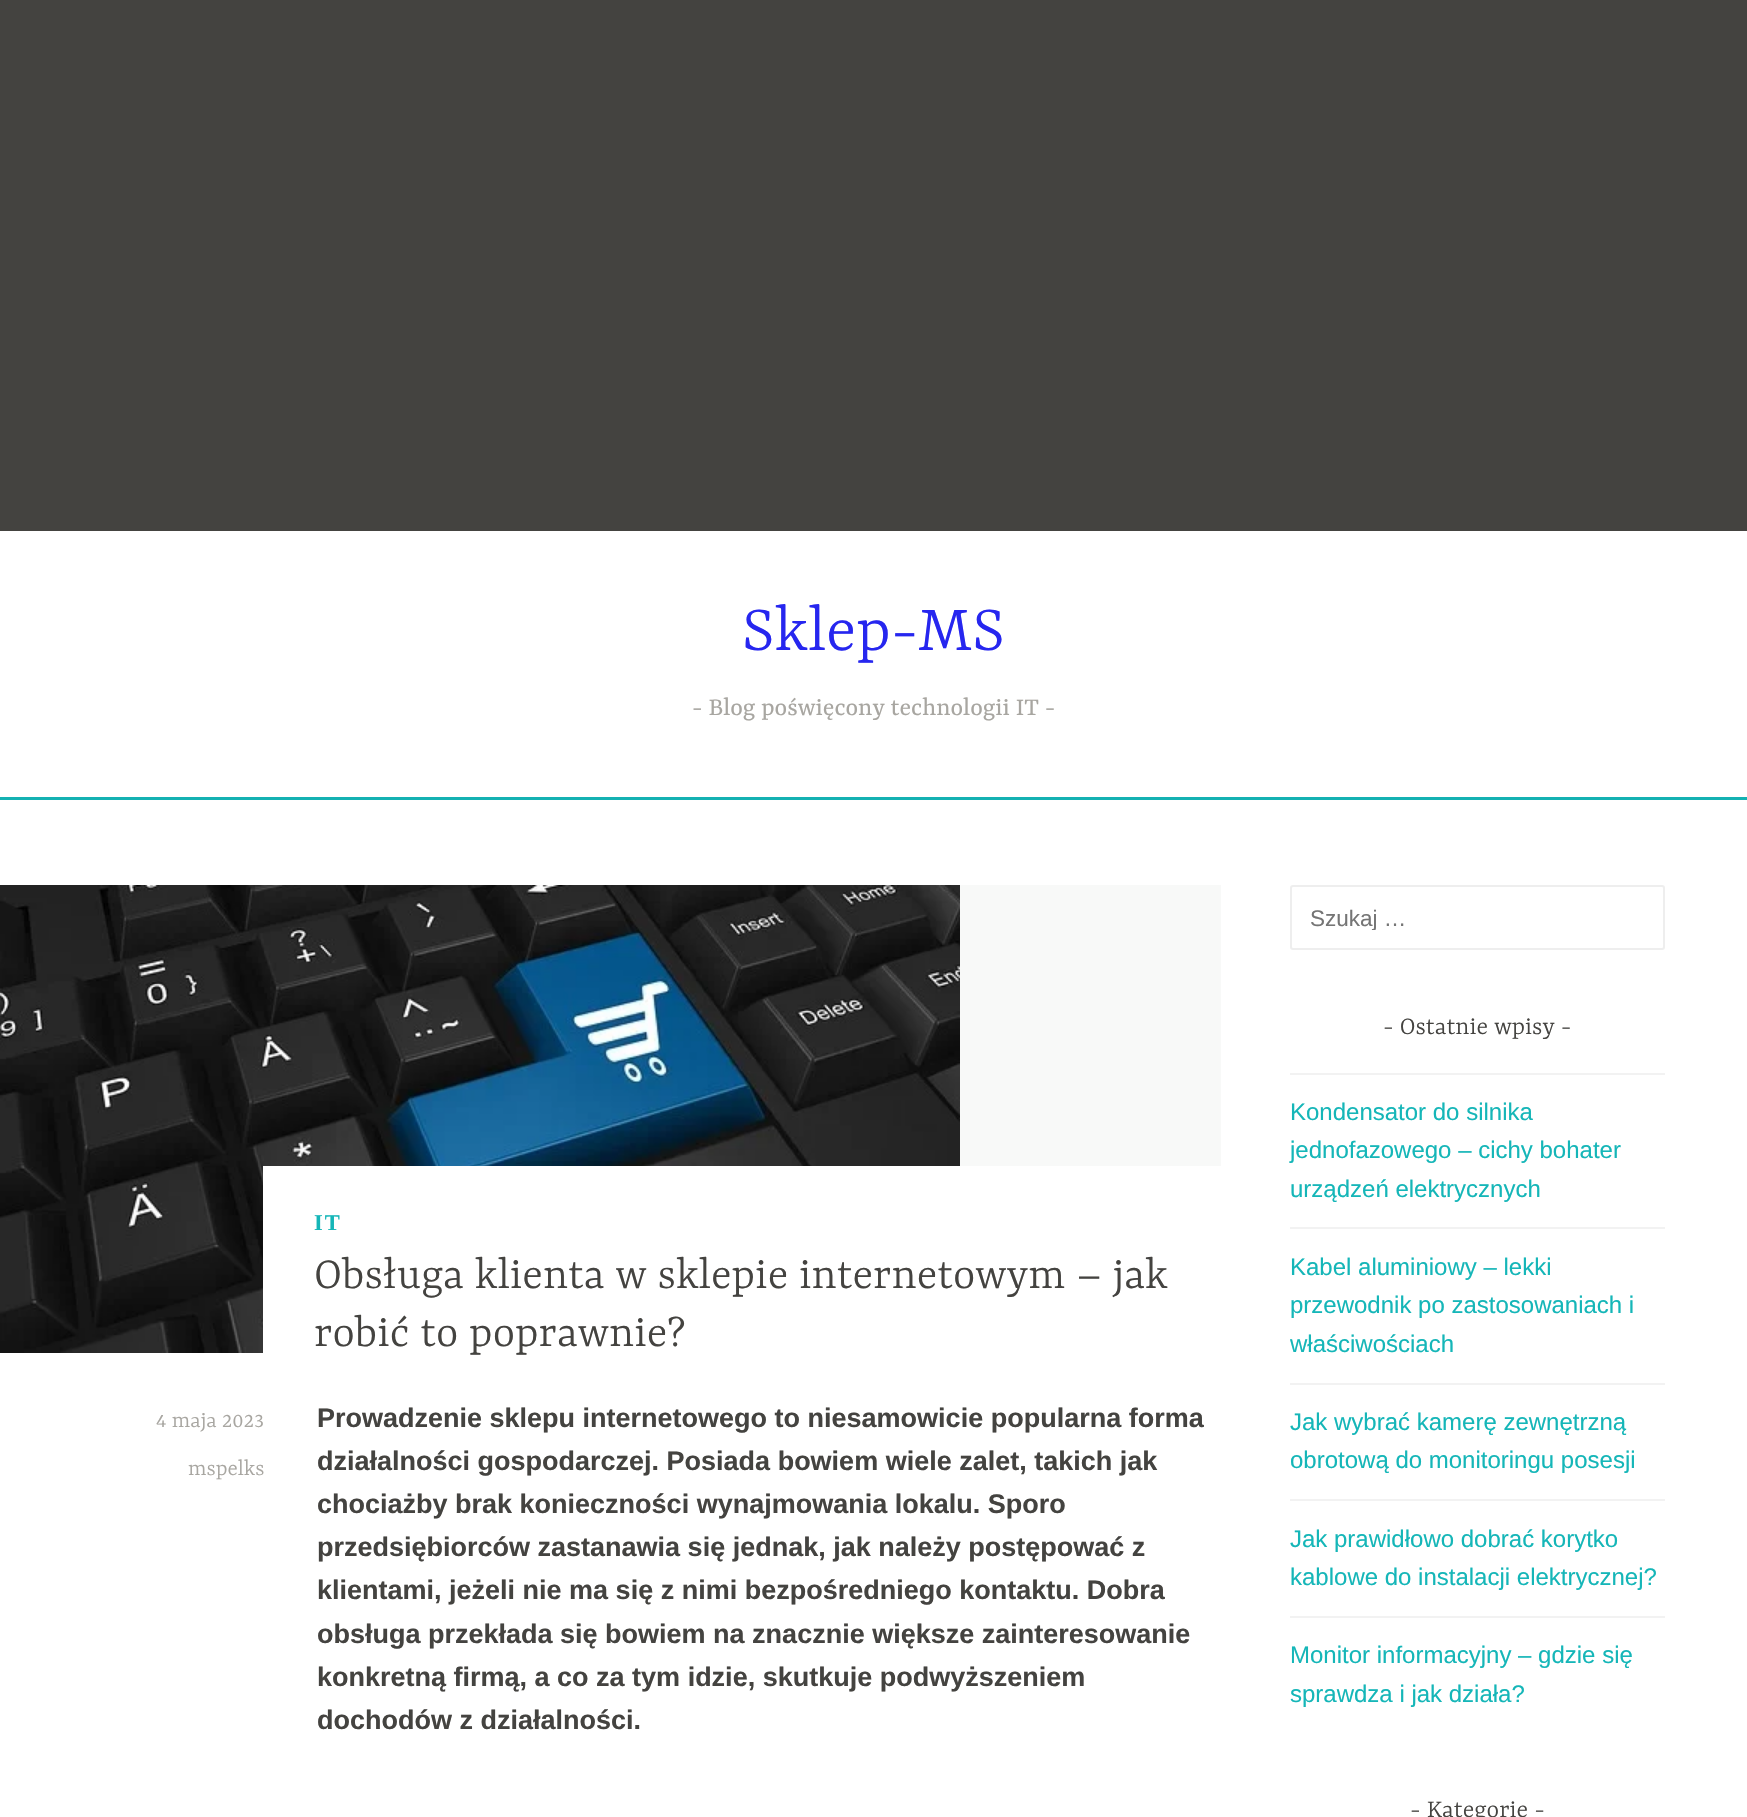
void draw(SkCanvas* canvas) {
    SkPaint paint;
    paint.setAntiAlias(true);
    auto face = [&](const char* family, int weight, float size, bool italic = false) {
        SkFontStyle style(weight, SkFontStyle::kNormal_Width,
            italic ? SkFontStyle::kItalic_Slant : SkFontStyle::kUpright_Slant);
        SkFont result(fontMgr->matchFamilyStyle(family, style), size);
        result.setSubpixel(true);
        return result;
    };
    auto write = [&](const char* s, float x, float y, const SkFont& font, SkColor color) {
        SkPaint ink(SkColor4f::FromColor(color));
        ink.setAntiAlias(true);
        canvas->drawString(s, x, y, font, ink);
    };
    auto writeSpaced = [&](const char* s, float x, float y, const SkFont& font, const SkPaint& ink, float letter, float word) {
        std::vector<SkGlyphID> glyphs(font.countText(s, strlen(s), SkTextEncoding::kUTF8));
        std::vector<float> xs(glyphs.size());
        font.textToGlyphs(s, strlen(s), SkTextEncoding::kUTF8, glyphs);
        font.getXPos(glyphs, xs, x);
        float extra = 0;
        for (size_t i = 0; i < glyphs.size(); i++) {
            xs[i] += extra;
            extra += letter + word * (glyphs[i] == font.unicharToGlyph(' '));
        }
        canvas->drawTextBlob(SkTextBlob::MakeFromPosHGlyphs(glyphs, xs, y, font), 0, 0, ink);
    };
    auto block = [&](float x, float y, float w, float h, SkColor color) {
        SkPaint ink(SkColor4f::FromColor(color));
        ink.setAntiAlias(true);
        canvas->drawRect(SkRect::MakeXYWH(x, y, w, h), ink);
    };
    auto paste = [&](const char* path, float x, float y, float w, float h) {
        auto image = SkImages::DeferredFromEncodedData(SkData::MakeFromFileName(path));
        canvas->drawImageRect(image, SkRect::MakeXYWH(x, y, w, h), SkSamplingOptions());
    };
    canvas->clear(SkColorSetRGB(68, 67, 64));
    block(0, 531, 1747, 266, SK_ColorWHITE);
    auto kFont1 = face("Yrsa", 300, 70.5f);
    write("Sklep-MS", 742, 650, kFont1, SkColorSetRGB(38, 38, 239));
    auto kFont2 = face("Yrsa", 400, 27);
    write("- Blog poświęcony technologii IT -", 692, 715, kFont2, SkColorSetRGB(168, 166, 161));
    block(0, 797, 1747, 3, SkColorSetRGB(20, 177, 178));
    block(0, 800, 1747, 1017, SK_ColorWHITE);
    block(960, 885, 261, 281, SkColorSetRGB(248, 249, 248));
    paste("pic1.png", 0, 885, 960, 468);
    block(263, 1166, 697, 187, SK_ColorWHITE);
    auto kFont3 = face("Liberation Serif", 700, 22.5f);
    paint.setColor(SkColorSetRGB(21, 182, 184));
    writeSpaced("IT", 314, 1230, kFont3, paint, 2, 0);
    auto kFont4 = face("Yrsa", 300, 48);
    write("Obsługa klienta w sklepie internetowym – jak", 314, 1288, kFont4, SkColorSetRGB(68, 67, 64));
    write("robić to poprawnie?", 314, 1346, kFont4, SkColorSetRGB(68, 67, 64));
    auto kFont5 = face("Yrsa", 300, 24);
    write("4 maja 2023", 156, 1427, kFont5, SkColorSetRGB(168, 166, 161));
    write("mspelks", 188, 1475, kFont5, SkColorSetRGB(168, 166, 161));
    auto kFont6 = face("Liberation Sans", 700, 27);
    write("Prowadzenie sklepu internetowego to niesamowicie popularna forma", 317, 1427, kFont6, SkColorSetRGB(68, 67, 64));
    write("działalności gospodarczej. Posiada bowiem wiele zalet, takich jak", 317, 1470, kFont6, SkColorSetRGB(68, 67, 64));
    write("chociażby brak konieczności wynajmowania lokalu. Sporo", 317, 1513, kFont6, SkColorSetRGB(68, 67, 64));
    write("przedsiębiorców zastanawia się jednak, jak należy postępować z", 317, 1556, kFont6, SkColorSetRGB(68, 67, 64));
    write("klientami, jeżeli nie ma się z nimi bezpośredniego kontaktu. Dobra", 317, 1599, kFont6, SkColorSetRGB(68, 67, 64));
    write("obsługa przekłada się bowiem na znacznie większe zainteresowanie", 317, 1643, kFont6, SkColorSetRGB(68, 67, 64));
    write("konkretną firmą, a co za tym idzie, skutkuje podwyższeniem", 317, 1686, kFont6, SkColorSetRGB(68, 67, 64));
    write("dochodów z działalności.", 317, 1729, kFont6, SkColorSetRGB(68, 67, 64));
    paint.setStyle(SkPaint::kStroke_Style);
    paint.setStrokeWidth(2);
    paint.setColor(SkColorSetRGB(238, 238, 238));
    canvas->drawRoundRect(SkRect::MakeXYWH(1291, 886, 373, 63), 2, 2, paint);
    canvas->save();
    canvas->clipRect(SkRect::MakeXYWH(1310, 905, 315, 25));
    auto kFont7 = face("Liberation Sans", 400, 22.5f);
    write("Szukaj …", 1310, 926, kFont7, SkColorSetRGB(117, 117, 117));
    canvas->restore();
    auto kFont8 = face("Yrsa", 300, 27);
    write("- Ostatnie wpisy -", 1383, 1034, kFont8, SkColorSetRGB(68, 67, 64));
    block(1290, 1073, 375, 2, SkColorSetRGB(242, 242, 242));
    auto kFont9 = face("Liberation Sans", 400, 24);
    write("Kondensator do silnika", 1290, 1120, kFont9, SkColorSetRGB(21, 182, 184));
    write("jednofazowego – cichy bohater", 1290, 1158, kFont9, SkColorSetRGB(21, 182, 184));
    write("urządzeń elektrycznych", 1290, 1197, kFont9, SkColorSetRGB(21, 182, 184));
    block(1290, 1227, 375, 2, SkColorSetRGB(242, 242, 242));
    write("Kabel aluminiowy – lekki", 1290, 1275, kFont9, SkColorSetRGB(21, 182, 184));
    write("przewodnik po zastosowaniach i", 1290, 1313, kFont9, SkColorSetRGB(21, 182, 184));
    write("właściwościach", 1290, 1352, kFont9, SkColorSetRGB(21, 182, 184));
    block(1290, 1383, 375, 2, SkColorSetRGB(242, 242, 242));
    write("Jak wybrać kamerę zewnętrzną", 1290, 1430, kFont9, SkColorSetRGB(21, 182, 184));
    write("obrotową do monitoringu posesji", 1290, 1468, kFont9, SkColorSetRGB(21, 182, 184));
    block(1290, 1499, 375, 2, SkColorSetRGB(242, 242, 242));
    write("Jak prawidłowo dobrać korytko", 1290, 1547, kFont9, SkColorSetRGB(21, 182, 184));
    write("kablowe do instalacji elektrycznej?", 1290, 1585, kFont9, SkColorSetRGB(21, 182, 184));
    block(1290, 1616, 375, 2, SkColorSetRGB(242, 242, 242));
    write("Monitor informacyjny – gdzie się", 1290, 1663, kFont9, SkColorSetRGB(21, 182, 184));
    write("sprawdza i jak działa?", 1290, 1702, kFont9, SkColorSetRGB(21, 182, 184));
    write("- Kategorie -", 1410, 1817, kFont8, SkColorSetRGB(68, 67, 64));
}
